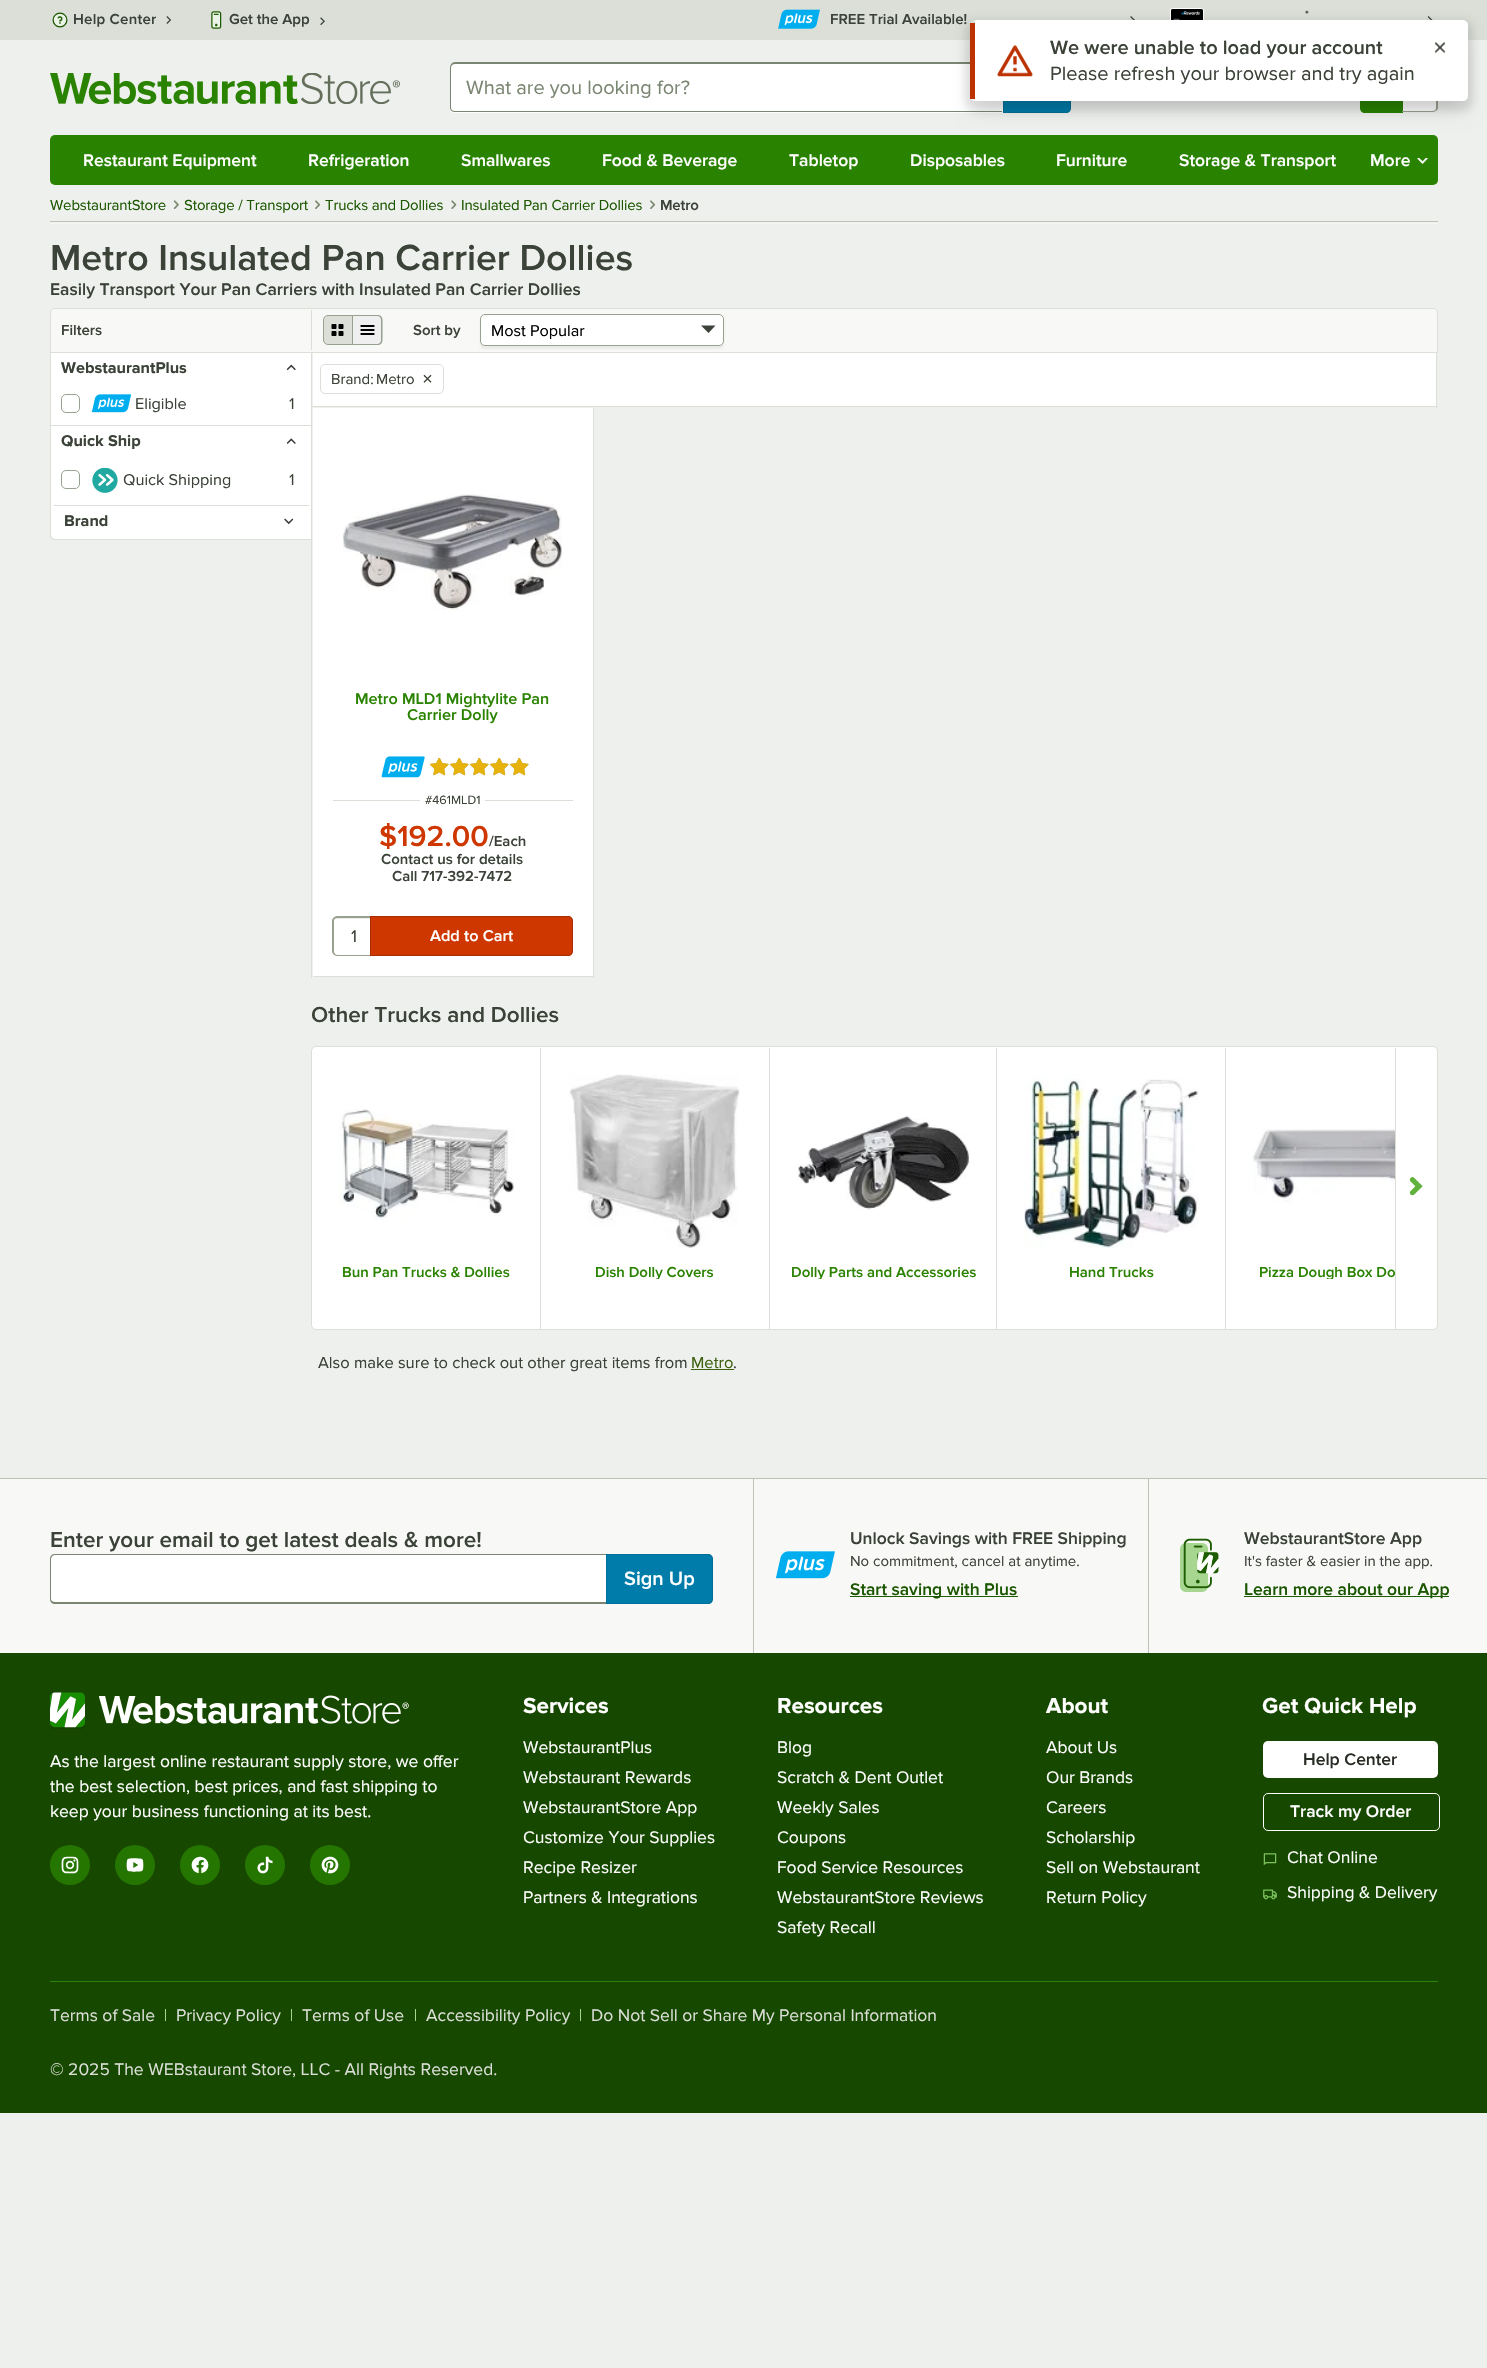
void draw(SkCanvas* canvas) {
    SkPaint paint;
    paint.setAntiAlias(true);
    auto face = [&](const char* family, int weight, float size, bool italic = false) {
        SkFontStyle style(weight, SkFontStyle::kNormal_Width,
            italic ? SkFontStyle::kItalic_Slant : SkFontStyle::kUpright_Slant);
        SkFont result(fontMgr->matchFamilyStyle(family, style), size);
        result.setSubpixel(true);
        return result;
    };
    auto write = [&](const char* s, float x, float y, const SkFont& font, SkColor color) {
        SkPaint ink(SkColor4f::FromColor(color));
        ink.setAntiAlias(true);
        canvas->drawString(s, x, y, font, ink);
    };
    auto writeSpaced = [&](const char* s, float x, float y, const SkFont& font, const SkPaint& ink, float letter, float word) {
        std::vector<SkGlyphID> glyphs(font.countText(s, strlen(s), SkTextEncoding::kUTF8));
        std::vector<float> xs(glyphs.size());
        font.textToGlyphs(s, strlen(s), SkTextEncoding::kUTF8, glyphs);
        font.getXPos(glyphs, xs, x);
        float extra = 0;
        for (size_t i = 0; i < glyphs.size(); i++) {
            xs[i] += extra;
            extra += letter + word * (glyphs[i] == font.unicharToGlyph(' '));
        }
        canvas->drawTextBlob(SkTextBlob::MakeFromPosHGlyphs(glyphs, xs, y, font), 0, 0, ink);
    };
    auto block = [&](float x, float y, float w, float h, SkColor color) {
        SkPaint ink(SkColor4f::FromColor(color));
        ink.setAntiAlias(true);
        canvas->drawRect(SkRect::MakeXYWH(x, y, w, h), ink);
    };
    auto card = [&](float x, float y, float w, float h, float radius, SkColor color) {
        SkPaint ink(SkColor4f::FromColor(color));
        ink.setAntiAlias(true);
        canvas->drawRoundRect(SkRect::MakeXYWH(x, y, w, h), radius, radius, ink);
    };
    auto paste = [&](const char* path, float x, float y, float w, float h) {
        auto image = SkImages::DeferredFromEncodedData(SkData::MakeFromFileName(path));
        canvas->drawImageRect(image, SkRect::MakeXYWH(x, y, w, h), SkSamplingOptions());
    };
    canvas->clear(SkColorSetRGB(238, 240, 237));
    block(0, 0, 1487, 40, SkColorSetRGB(219, 223, 216));
    paste("pic1.png", 52, 12, 16, 16);
    auto kFont1 = face("Proxima Nova", 600, 15);
    paint.setColor(SkColorSetRGB(59, 66, 56));
    writeSpaced("Help Center", 73, 24, kFont1, paint, 0.25f, 0);
    paste("pic2.png", 166, 16, 5, 8);
    paste("pic3.png", 211, 11, 11, 18);
    write("Get the App", 229, 24, kFont1, SkColorSetRGB(59, 66, 56));
    paste("pic4.png", 320, 17, 5, 9);
    paste("pic5.png", 1170, 8, 34, 12);
    auto kFont2 = face("Proxima Nova", 600, 11);
    write("*", 1305, 18, kFont2, SkColorSetRGB(59, 66, 56));
    paste("pic6.png", 1427, 16, 6, 4);
    paste("pic7.png", 778, 9, 42, 20);
    write("FREE Trial Available!", 830, 24, kFont1, SkColorSetRGB(59, 66, 56));
    paste("pic8.png", 1130, 16, 5, 4);
    paste("pic9.png", 50, 73, 350, 31);
    paint.setColor(SK_ColorWHITE);
    canvas->drawPath(SkPathBuilder().moveTo(455, 63).lineTo(1003, 63).lineTo(1003, 113).lineTo(455, 113).cubicTo(452, 113, 450, 111, 450, 108).lineTo(450, 68).cubicTo(450, 65, 452, 63, 455, 63).close().detach(), paint);
    paint.setColor(SkColorSetRGB(122, 134, 113));
    canvas->drawPath(SkPathBuilder(SkPathFillType::kEvenOdd).moveTo(455, 62).lineTo(1002, 62).lineTo(1002, 112).lineTo(455, 112).cubicTo(452, 112, 450, 110, 450, 108).lineTo(450, 68).cubicTo(450, 65, 452, 62, 455, 62).close().moveTo(455, 64).lineTo(1002, 64).lineTo(1002, 111).lineTo(455, 111).cubicTo(453, 111, 451, 110, 451, 108).lineTo(451, 68).cubicTo(451, 65, 453, 64, 455, 64).close().detach(), paint);
    auto kFont3 = face("Proxima Nova", 400, 20);
    write("What are you looking for?", 466, 94, kFont3, SkColorSetRGB(122, 134, 113));
    paint.setColor(SkColorSetRGB(0, 124, 170));
    canvas->drawPath(SkPathBuilder().moveTo(1003, 63).lineTo(1066, 63).cubicTo(1069, 63, 1071, 65, 1071, 68).lineTo(1071, 108).cubicTo(1071, 111, 1069, 113, 1066, 113).lineTo(1003, 113).close().detach(), paint);
    paint.setStyle(SkPaint::kStroke_Style);
    paint.setStrokeWidth(1);
    paint.setColor(SkColorSetARGB(26, 0, 0, 0));
    canvas->drawPath(SkPathBuilder().moveTo(1003.5f, 63.5f).lineTo(1066, 63.5f).cubicTo(1068.5f, 63.5f, 1070.5f, 65.5f, 1070.5f, 68).lineTo(1070.5f, 108).cubicTo(1070.5f, 110.5f, 1068.5f, 112.5f, 1066, 112.5f).lineTo(1003.5f, 112.5f).close().detach(), paint);
    paint.setStyle(SkPaint::kFill_Style);
    paint.setColor(SkColorSetRGB(41, 130, 0));
    canvas->drawPath(SkPathBuilder().moveTo(1365, 63).lineTo(1403, 63).lineTo(1403, 113).lineTo(1365, 113).cubicTo(1362, 113, 1360, 111, 1360, 108).lineTo(1360, 68).cubicTo(1360, 65, 1362, 63, 1365, 63).close().detach(), paint);
    paint.setColor(SK_ColorWHITE);
    canvas->drawPath(SkPathBuilder().moveTo(1403, 64).lineTo(1432, 64).cubicTo(1434, 64, 1436, 66, 1436, 68).lineTo(1436, 107).cubicTo(1436, 109, 1434, 111, 1432, 111).lineTo(1403, 111).close().detach(), paint);
    paint.setColor(SkColorSetRGB(151, 161, 143));
    canvas->drawPath(SkPathBuilder().moveTo(1402, 64).lineTo(1432, 64).cubicTo(1435, 64, 1436, 65, 1436, 68).lineTo(1436, 108).cubicTo(1436, 110, 1435, 111, 1432, 111).lineTo(1402, 111).lineTo(1402, 112).lineTo(1432, 112).cubicTo(1435, 112, 1438, 110, 1438, 108).lineTo(1438, 68).cubicTo(1438, 66, 1437, 64, 1435, 63).lineTo(1402, 63).close().detach(), paint);
    card(50, 135, 1388, 50, 5, SkColorSetRGB(41, 130, 0));
    auto kFont4 = face("Proxima Nova", 600, 17.5f);
    write("Restaurant Equipment", 83, 166, kFont4, SK_ColorWHITE);
    write("Refrigeration", 308, 166, kFont4, SK_ColorWHITE);
    write("Smallwares", 461, 166, kFont4, SK_ColorWHITE);
    write("Food & Beverage", 602, 166, kFont4, SK_ColorWHITE);
    write("Tabletop", 789, 166, kFont4, SK_ColorWHITE);
    write("Disposables", 910, 166, kFont4, SK_ColorWHITE);
    write("Furniture", 1056, 166, kFont4, SK_ColorWHITE);
    write("Storage & Transport", 1179, 166, kFont4, SK_ColorWHITE);
    write("More", 1370, 166, kFont4, SK_ColorWHITE);
    paste("pic10.png", 1417, 158, 11, 6);
    paint.setColor(SkColorSetARGB(26, 0, 0, 0));
    paint.setMaskFilter(SkMaskFilter::MakeBlur(kNormal_SkBlurStyle, 9.5f));
    canvas->drawRoundRect(SkRect::MakeXYWH(974, 36, 490, 74), 1, 1, paint);
    paint.setMaskFilter(nullptr);
    canvas->save();
    canvas->clipPath(SkPathBuilder(SkPathFillType::kEvenOdd).moveTo(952, 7).lineTo(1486, 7).lineTo(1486, 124).lineTo(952, 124).close().moveTo(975, 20).lineTo(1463, 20).cubicTo(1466, 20, 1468, 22, 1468, 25).lineTo(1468, 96).cubicTo(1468, 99, 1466, 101, 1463, 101).lineTo(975, 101).cubicTo(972, 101, 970, 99, 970, 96).lineTo(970, 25).cubicTo(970, 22, 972, 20, 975, 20).close().detach(), true);
    paint.setMaskFilter(SkMaskFilter::MakeBlur(kNormal_SkBlurStyle, 4));
    canvas->drawRoundRect(SkRect::MakeXYWH(965, 20, 508, 91), 10, 10, paint);
    paint.setMaskFilter(nullptr);
    canvas->restore();
    paint.setColor(SK_ColorWHITE);
    canvas->drawPath(SkPathBuilder().moveTo(975, 20).lineTo(1462, 20).cubicTo(1465, 20, 1468, 22, 1468, 25).lineTo(1468, 96).cubicTo(1468, 99, 1465, 101, 1462, 101).lineTo(975, 101).close().detach(), paint);
    block(970, 23, 5, 76, SkColorSetRGB(188, 50, 0));
    paste("pic11.png", 997, 45, 36, 32);
    auto kFont5 = face("Proxima Nova", 600, 20);
    write("We were unable to load your account", 1050, 54, kFont5, SkColorSetRGB(59, 66, 56));
    write("Please refresh your browser and try again", 1050, 80, kFont3, SkColorSetRGB(59, 66, 56));
    paste("pic12.png", 1434, 41, 12, 13);
    paint.setColor(SkColorSetRGB(243, 245, 242));
    canvas->drawPath(SkPathBuilder().moveTo(50, 222).lineTo(50, 224).lineTo(1438, 224).lineTo(1438, 186).lineTo(1438, 222).close().detach(), paint);
    block(50, 221, 1388, 1, SkColorSetRGB(188, 195, 182));
    auto kFont6 = face("Proxima Nova", 400, 15);
    paint.setColor(SkColorSetRGB(27, 87, 0));
    writeSpaced("WebstaurantStore", 50, 210, kFont6, paint, -0.15f, 0);
    paste("pic13.png", 173, 200, 6, 9);
    writeSpaced("Storage / Transport", 184, 210, kFont6, paint, -0.15f, 0);
    paste("pic14.png", 315, 200, 5, 9);
    writeSpaced("Trucks and Dollies", 325, 210, kFont6, paint, -0.15f, 0);
    paste("pic15.png", 451, 200, 6, 9);
    writeSpaced("Insulated Pan Carrier Dollies", 461, 210, kFont6, paint, -0.15f, 0);
    paste("pic14.png", 650, 200, 5, 9);
    paint.setColor(SkColorSetRGB(59, 66, 56));
    writeSpaced("Metro", 660, 210, kFont1, paint, -0.15f, 0);
    auto kFont7 = face("Proxima Nova", 600, 37.5f);
    write("Metro Insulated Pan Carrier Dollies", 50, 270, kFont7, SkColorSetRGB(59, 66, 56));
    write("Easily Transport Your Pan Carriers with Insulated Pan Carrier Dollies", 50, 295, kFont4, SkColorSetRGB(59, 66, 56));
    paint.setColor(SK_ColorWHITE);
    canvas->drawPath(SkPathBuilder().moveTo(51, 353).lineTo(311, 353).lineTo(311, 539).lineTo(55, 539).cubicTo(53, 539, 51, 537, 51, 535).close().detach(), paint);
    paint.setColor(SkColorSetRGB(219, 223, 216));
    canvas->drawPath(SkPathBuilder(SkPathFillType::kEvenOdd).moveTo(50, 352).lineTo(311, 352).lineTo(311, 540).lineTo(55, 540).cubicTo(52, 540, 50, 538, 50, 535).close().moveTo(51, 352).lineTo(311, 352).lineTo(311, 539).lineTo(55, 539).cubicTo(53, 539, 51, 537, 51, 535).close().detach(), paint);
    block(1436, 351, 1, 57, SkColorSetRGB(219, 223, 216));
    block(311, 406, 1127, 1, SkColorSetRGB(219, 223, 216));
    block(311, 351, 1, 57, SkColorSetRGB(219, 223, 216));
    paint.setColor(SkColorSetRGB(248, 248, 247));
    canvas->drawPath(SkPathBuilder().moveTo(55, 308.5f).lineTo(1433, 308.5f).cubicTo(1435.5f, 308.5f, 1437.5f, 310.5f, 1437.5f, 313).lineTo(1437.5f, 352.5f).lineTo(50.5f, 352.5f).lineTo(50.5f, 313).cubicTo(50.5f, 310.5f, 52.5f, 308.5f, 55, 308.5f).close().detach(), paint);
    paint.setStyle(SkPaint::kStroke_Style);
    paint.setColor(SkColorSetRGB(219, 223, 216));
    canvas->drawPath(SkPathBuilder().moveTo(55, 308.5f).lineTo(1433, 308.5f).cubicTo(1435.5f, 308.5f, 1437.5f, 310.5f, 1437.5f, 313).lineTo(1437.5f, 352.5f).lineTo(50.5f, 352.5f).lineTo(50.5f, 313).cubicTo(50.5f, 310.5f, 52.5f, 308.5f, 55, 308.5f).close().detach(), paint);
    block(311, 310, 1, 40, SkColorSetRGB(219, 223, 216));
    write("Filters", 61, 335, kFont1, SkColorSetRGB(59, 66, 56));
    paint.setStyle(SkPaint::kFill_Style);
    canvas->drawPath(SkPathBuilder().moveTo(328, 315.5f).lineTo(352.5f, 315.5f).lineTo(352.5f, 344.5f).lineTo(328, 344.5f).cubicTo(325.5f, 344.5f, 323.5f, 342.5f, 323.5f, 340).lineTo(323.5f, 320).cubicTo(323.5f, 317.5f, 325.5f, 315.5f, 328, 315.5f).close().detach(), paint);
    paint.setStyle(SkPaint::kStroke_Style);
    paint.setColor(SkColorSetRGB(151, 161, 143));
    canvas->drawPath(SkPathBuilder().moveTo(328, 315.5f).lineTo(352.5f, 315.5f).lineTo(352.5f, 344.5f).lineTo(328, 344.5f).cubicTo(325.5f, 344.5f, 323.5f, 342.5f, 323.5f, 340).lineTo(323.5f, 320).cubicTo(323.5f, 317.5f, 325.5f, 315.5f, 328, 315.5f).close().detach(), paint);
    paste("pic16.png", 331, 324, 13, 12);
    paint.setStyle(SkPaint::kFill_Style);
    paint.setColor(SkColorSetRGB(239, 239, 239));
    canvas->drawPath(SkPathBuilder().moveTo(353, 316).lineTo(377, 316).cubicTo(379, 316, 381, 318, 381, 320).lineTo(381, 340).cubicTo(381, 342, 379, 344, 377, 344).lineTo(353, 344).close().detach(), paint);
    paint.setColor(SkColorSetRGB(151, 161, 143));
    canvas->drawPath(SkPathBuilder(SkPathFillType::kEvenOdd).moveTo(352.5f, 315).lineTo(377.5f, 315).cubicTo(380.5f, 315, 382.5f, 317, 382.5f, 320).lineTo(382.5f, 340).cubicTo(382.5f, 343, 380.5f, 345, 377.5f, 345).lineTo(352.5f, 345).close().moveTo(352.5f, 316).lineTo(377.5f, 316).cubicTo(379.5f, 316, 381, 318, 381, 320).lineTo(381, 340).cubicTo(381, 342, 379.5f, 344, 377.5f, 344).lineTo(352.5f, 344).close().detach(), paint);
    paste("pic17.png", 360, 325, 15, 10);
    write("Sort by", 413, 335, kFont1, SkColorSetRGB(59, 66, 56));
    paint.setColor(SkColorSetARGB(13, 0, 0, 0));
    paint.setMaskFilter(SkMaskFilter::MakeBlur(kNormal_SkBlurStyle, 1));
    canvas->drawRoundRect(SkRect::MakeXYWH(480, 316, 244, 33), 5, 5, paint);
    paint.setMaskFilter(nullptr);
    paint.setColor(SK_ColorWHITE);
    canvas->drawRoundRect(SkRect::MakeXYWH(480.5f, 314.5f, 243, 31), 4.5f, 4.5f, paint);
    paint.setStyle(SkPaint::kStroke_Style);
    paint.setColor(SkColorSetRGB(151, 161, 143));
    canvas->drawRoundRect(SkRect::MakeXYWH(480.5f, 314.5f, 243, 31), 4.5f, 4.5f, paint);
    auto kFont8 = face("Proxima Nova", 400, 16.25f);
    write("Most Popular", 491, 336, kFont8, SK_ColorBLACK);
    paint.setStyle(SkPaint::kFill_Style);
    paint.setColor(SkColorSetRGB(59, 66, 56));
    canvas->drawPath(SkPathBuilder().moveTo(708.5f, 333).lineTo(701, 325.5f).lineTo(715.5f, 325.5f).close().detach(), paint);
    block(51, 425, 260, 1, SkColorSetRGB(219, 223, 216));
    auto kFont9 = face("Proxima Nova", 700, 16.25f);
    write("WebstaurantPlus", 61, 373, kFont9, SkColorSetRGB(59, 66, 56));
    paste("pic18.png", 286, 364, 10, 7);
    paint.setStyle(SkPaint::kStroke_Style);
    paint.setColor(SkColorSetRGB(151, 161, 143));
    canvas->drawRoundRect(SkRect::MakeXYWH(61.5f, 394.5f, 18, 18), 4.5f, 4.5f, paint);
    paste("pic19.png", 91, 394, 40, 19);
    write("Eligible", 135, 409, kFont8, SkColorSetRGB(59, 66, 56));
    write("1", 289, 409, kFont8, SkColorSetRGB(59, 66, 56));
    write("Quick Ship", 61, 446, kFont9, SkColorSetRGB(59, 66, 56));
    paste("pic20.png", 286, 438, 10, 6);
    canvas->drawRoundRect(SkRect::MakeXYWH(61.5f, 470.5f, 18, 18), 4.5f, 4.5f, paint);
    paste("pic21.png", 92, 468, 26, 25);
    write("Quick Shipping", 123, 485, kFont8, SkColorSetRGB(59, 66, 56));
    write("1", 289, 485, kFont8, SkColorSetRGB(59, 66, 56));
    block(54, 505, 255, 1, SkColorSetRGB(219, 223, 216));
    write("Brand", 64, 526, kFont9, SkColorSetRGB(59, 66, 56));
    paste("pic22.png", 284, 518, 10, 7);
    block(313, 353, 1123, 53, SK_ColorWHITE);
    paint.setColor(SkColorSetRGB(219, 223, 216));
    canvas->drawRoundRect(SkRect::MakeXYWH(320.5f, 364.5f, 123, 29), 4.5f, 4.5f, paint);
    write("Brand:", 331, 384, kFont6, SkColorSetRGB(59, 66, 56));
    write("Metro", 376, 384, kFont6, SkColorSetRGB(59, 66, 56));
    paste("pic23.png", 423, 374, 9, 9);
    block(311, 408, 1, 570, SkColorSetRGB(219, 223, 216));
    block(313, 408, 280, 568, SK_ColorWHITE);
    block(593, 408, 1, 570, SkColorSetRGB(219, 223, 216));
    block(313, 976, 281, 1, SkColorSetRGB(219, 223, 216));
    paste("pic24.png", 342, 494, 220, 117);
    auto kFont10 = face("Proxima Nova", 600, 16.25f);
    write("Metro MLD1 Mightylite Pan", 355, 704, kFont10, SkColorSetRGB(41, 130, 0));
    write("Carrier Dolly", 407, 720, kFont10, SkColorSetRGB(41, 130, 0));
    paste("pic25.png", 381, 756, 44, 22);
    paste("pic26.png", 430, 758, 19, 18);
    paste("pic26.png", 450, 758, 19, 18);
    paste("pic26.png", 470, 758, 19, 18);
    paste("pic26.png", 490, 758, 19, 18);
    paste("pic26.png", 510, 758, 19, 18);
    block(333, 800, 240, 1, SkColorSetRGB(219, 223, 216));
    block(420, 800, 65, 1, SK_ColorWHITE);
    auto kFont11 = face("Proxima Nova", 400, 12.5f);
    write("#461MLD1", 425, 804, kFont11, SkColorSetRGB(59, 66, 56));
    auto kFont12 = face("Proxima Nova", 600, 30);
    write("$192.00", 379, 846, kFont12, SkColorSetRGB(207, 55, 0));
    write("/Each", 489, 846, kFont1, SkColorSetRGB(59, 66, 56));
    write("Contact us for details", 381, 864, kFont1, SkColorSetRGB(59, 66, 56));
    write("Call 717-392-7472", 392, 881, kFont1, SkColorSetRGB(59, 66, 56));
    paint.setStyle(SkPaint::kFill_Style);
    paint.setColor(SkColorSetRGB(236, 236, 236));
    canvas->drawPath(SkPathBuilder().moveTo(338, 919).lineTo(374, 919).lineTo(374, 918).lineTo(338, 918).cubicTo(336.5f, 918, 335, 919, 334.5f, 920.5f).cubicTo(335, 919.5f, 336, 919, 338, 919).close().detach(), paint);
    paint.setColor(SkColorSetRGB(151, 161, 143));
    canvas->drawPath(SkPathBuilder(SkPathFillType::kEvenOdd).moveTo(338, 916).lineTo(374, 916).lineTo(374, 956).lineTo(338, 956).cubicTo(335, 956, 332, 954, 332, 951).lineTo(332, 921).cubicTo(332, 918, 335, 916, 338, 916).close().moveTo(338, 918).lineTo(374, 918).lineTo(374, 955).lineTo(338, 955).cubicTo(335, 955, 334, 953, 334, 951).lineTo(334, 921).cubicTo(334, 919, 335, 918, 338, 918).close().detach(), paint);
    auto kFont13 = face("Proxima Nova", 400, 17.5f);
    write("1", 351, 942, kFont13, SkColorSetRGB(59, 66, 56));
    paint.setColor(SkColorSetRGB(207, 55, 0));
    canvas->drawPath(SkPathBuilder().moveTo(370, 916).lineTo(568, 916).cubicTo(571, 916, 573, 918, 573, 921).lineTo(573, 951).cubicTo(573, 954, 571, 956, 568, 956).lineTo(370, 956).close().detach(), paint);
    paint.setStyle(SkPaint::kStroke_Style);
    paint.setColor(SkColorSetARGB(51, 0, 0, 0));
    canvas->drawPath(SkPathBuilder().moveTo(370.5f, 916.5f).lineTo(568, 916.5f).cubicTo(570.5f, 916.5f, 572.5f, 918.5f, 572.5f, 921).lineTo(572.5f, 951).cubicTo(572.5f, 953.5f, 570.5f, 955.5f, 568, 955.5f).lineTo(370.5f, 955.5f).close().detach(), paint);
    write("Add to Cart", 430, 941, kFont10, SK_ColorWHITE);
    auto kFont14 = face("Proxima Nova", 600, 22.5f);
    write("Other Trucks and Dollies", 311, 1022, kFont14, SkColorSetRGB(59, 66, 56));
    paint.setStyle(SkPaint::kFill_Style);
    paint.setColor(SK_ColorWHITE);
    canvas->drawRoundRect(SkRect::MakeXYWH(311.5f, 1046.5f, 1126, 283), 4.5f, 4.5f, paint);
    paint.setStyle(SkPaint::kStroke_Style);
    paint.setColor(SkColorSetRGB(219, 223, 216));
    canvas->drawRoundRect(SkRect::MakeXYWH(311.5f, 1046.5f, 1126, 283), 4.5f, 4.5f, paint);
    block(540, 1048, 1, 281, SkColorSetRGB(219, 223, 216));
    paste("pic27.png", 339, 1109, 175, 111);
    write("Bun Pan Trucks & Dollies", 342, 1277, kFont1, SkColorSetRGB(41, 130, 0));
    block(769, 1048, 1, 281, SkColorSetRGB(219, 223, 216));
    paste("pic28.png", 569, 1074, 171, 174);
    canvas->save();
    canvas->clipRect(SkRect::MakeXYWH(561, 1264, 188, 15));
    write("Dish Dolly Covers", 595, 1277, kFont1, SkColorSetRGB(41, 130, 0));
    canvas->restore();
    block(996, 1048, 1, 281, SkColorSetRGB(219, 223, 216));
    paste("pic29.png", 798, 1115, 172, 95);
    canvas->save();
    canvas->clipRect(SkRect::MakeXYWH(790, 1264, 186, 15));
    write("Dolly Parts and Accessories", 791, 1277, kFont1, SkColorSetRGB(41, 130, 0));
    canvas->restore();
    block(1225, 1048, 1, 281, SkColorSetRGB(219, 223, 216));
    paste("pic30.png", 1023, 1074, 176, 174);
    write("Hand Trucks", 1069, 1277, kFont1, SkColorSetRGB(41, 130, 0));
    paste("pic31.png", 1252, 1129, 143, 74);
    canvas->save();
    canvas->clipRect(SkRect::MakeXYWH(1246, 1264, 188, 15));
    write("Pizza Dough Box Do", 1259, 1277, kFont1, SkColorSetRGB(41, 130, 0));
    canvas->restore();
    block(1395, 1048, 1, 281, SkColorSetRGB(219, 223, 216));
    paste("pic32.png", 1409, 1177, 14, 19);
    auto kFont15 = face("Proxima Nova", 400, 16.5f);
    write("Also make sure to check out other great items from", 318, 1368, kFont15, SkColorSetRGB(59, 66, 56));
    write("Metro", 691, 1368, kFont15, SkColorSetRGB(63, 98, 18));
    block(691, 1369, 43, 1, SkColorSetRGB(63, 98, 18));
    write(".", 733, 1368, kFont15, SkColorSetRGB(59, 66, 56));
    block(0, 1479, 1487, 174, SkColorSetRGB(248, 248, 247));
    block(0, 1478, 1487, 1, SkColorSetRGB(188, 195, 182));
    block(753, 1479, 1, 174, SkColorSetRGB(188, 195, 182));
    write("Enter your email to get latest deals & more!", 50, 1547, kFont14, SkColorSetRGB(59, 66, 56));
    paint.setStyle(SkPaint::kFill_Style);
    paint.setColor(SK_ColorWHITE);
    canvas->drawPath(SkPathBuilder().moveTo(55, 1554).lineTo(606, 1554).lineTo(606, 1604).lineTo(55, 1604).cubicTo(52, 1604, 50, 1602, 50, 1599).lineTo(50, 1559).cubicTo(50, 1556, 52, 1554, 55, 1554).close().detach(), paint);
    paint.setColor(SkColorSetRGB(122, 134, 113));
    canvas->drawPath(SkPathBuilder(SkPathFillType::kEvenOdd).moveTo(55, 1554).lineTo(606, 1554).lineTo(606, 1604).lineTo(55, 1604).cubicTo(52, 1604, 50, 1602, 50, 1599).lineTo(50, 1559).cubicTo(50, 1556, 52, 1554, 55, 1554).close().moveTo(55, 1555).lineTo(606, 1555).lineTo(606, 1602).lineTo(55, 1602).cubicTo(53, 1602, 51, 1601, 51, 1599).lineTo(51, 1559).cubicTo(51, 1557, 53, 1555, 55, 1555).close().detach(), paint);
    paint.setColor(SkColorSetRGB(0, 124, 170));
    canvas->drawPath(SkPathBuilder().moveTo(606, 1554).lineTo(708, 1554).cubicTo(711, 1554, 713, 1556, 713, 1559).lineTo(713, 1599).cubicTo(713, 1602, 711, 1604, 708, 1604).lineTo(606, 1604).close().detach(), paint);
    paint.setStyle(SkPaint::kStroke_Style);
    paint.setColor(SkColorSetARGB(26, 0, 0, 0));
    canvas->drawPath(SkPathBuilder().moveTo(606.5f, 1554.5f).lineTo(708, 1554.5f).cubicTo(710.5f, 1554.5f, 712.5f, 1556.5f, 712.5f, 1559).lineTo(712.5f, 1599).cubicTo(712.5f, 1601.5f, 710.5f, 1603.5f, 708, 1603.5f).lineTo(606.5f, 1603.5f).close().detach(), paint);
    write("Sign Up", 624, 1585, kFont5, SK_ColorWHITE);
    paste("pic33.png", 776, 1551, 59, 28);
    write("Unlock Savings with FREE Shipping", 850, 1544, kFont4, SkColorSetRGB(59, 66, 56));
    write("No commitment, cancel at anytime.", 850, 1566, kFont6, SkColorSetRGB(59, 66, 56));
    block(850, 1596, 168, 1, SkColorSetRGB(29, 92, 0));
    write("Start saving with Plus", 850, 1595, kFont4, SkColorSetRGB(27, 87, 0));
    block(1148, 1479, 1, 174, SkColorSetRGB(188, 195, 182));
    paste("pic34.png", 1180, 1538, 39, 54);
    write("WebstaurantStore App", 1244, 1544, kFont4, SkColorSetRGB(59, 66, 56));
    write("It's faster & easier in the app.", 1244, 1566, kFont6, SkColorSetRGB(59, 66, 56));
    block(1244, 1596, 205, 1, SkColorSetRGB(29, 92, 0));
    write("Learn more about our App", 1244, 1595, kFont4, SkColorSetRGB(27, 87, 0));
    block(0, 1653, 1487, 460, SkColorSetRGB(23, 72, 0));
    paste("pic35.png", 50, 1692, 35, 37);
    paste("pic36.png", 99, 1695, 310, 29);
    write("As the largest online restaurant supply store, we offer", 50, 1767, kFont13, SK_ColorWHITE);
    write("the best selection, best prices, and fast shipping to", 50, 1792, kFont13, SK_ColorWHITE);
    write("keep your business functioning at its best.", 50, 1817, kFont13, SK_ColorWHITE);
    paint.setStyle(SkPaint::kFill_Style);
    paint.setColor(SkColorSetRGB(37, 118, 0));
    canvas->drawCircle(70, 1865, 20, paint);
    paste("pic37.png", 61, 1856, 18, 18);
    canvas->drawCircle(135, 1865, 20, paint);
    paste("pic38.png", 126, 1858, 18, 14);
    canvas->drawCircle(200, 1865, 20, paint);
    paste("pic39.png", 191, 1856, 18, 18);
    canvas->drawCircle(265, 1865, 20, paint);
    paste("pic40.png", 257, 1856, 16, 18);
    canvas->drawCircle(330, 1865, 20, paint);
    paste("pic41.png", 321, 1856, 18, 18);
    auto kFont16 = face("Proxima Nova", 700, 22.5f);
    write("Services", 523, 1713, kFont16, SK_ColorWHITE);
    write("WebstaurantPlus", 523, 1753, kFont13, SK_ColorWHITE);
    write("Webstaurant Rewards", 523, 1783, kFont13, SK_ColorWHITE);
    write("WebstaurantStore App", 523, 1813, kFont13, SK_ColorWHITE);
    write("Customize Your Supplies", 523, 1843, kFont13, SK_ColorWHITE);
    write("Recipe Resizer", 523, 1873, kFont13, SK_ColorWHITE);
    write("Partners & Integrations", 523, 1903, kFont13, SK_ColorWHITE);
    write("Resources", 777, 1713, kFont16, SK_ColorWHITE);
    write("Blog", 777, 1753, kFont13, SK_ColorWHITE);
    write("Scratch & Dent Outlet", 777, 1783, kFont13, SK_ColorWHITE);
    write("Weekly Sales", 777, 1813, kFont13, SK_ColorWHITE);
    write("Coupons", 777, 1843, kFont13, SK_ColorWHITE);
    write("Food Service Resources", 777, 1873, kFont13, SK_ColorWHITE);
    write("WebstaurantStore Reviews", 777, 1903, kFont13, SK_ColorWHITE);
    write("Safety Recall", 777, 1933, kFont13, SK_ColorWHITE);
    write("About", 1046, 1713, kFont16, SK_ColorWHITE);
    write("About Us", 1046, 1753, kFont13, SK_ColorWHITE);
    write("Our Brands", 1046, 1783, kFont13, SK_ColorWHITE);
    write("Careers", 1046, 1813, kFont13, SK_ColorWHITE);
    write("Scholarship", 1046, 1843, kFont13, SK_ColorWHITE);
    write("Sell on Webstaurant", 1046, 1873, kFont13, SK_ColorWHITE);
    write("Return Policy", 1046, 1903, kFont13, SK_ColorWHITE);
    write("Get Quick Help", 1262, 1713, kFont16, SK_ColorWHITE);
    card(1263, 1741, 175, 37, 5, SK_ColorWHITE);
    write("Help Center", 1303, 1765, kFont4, SkColorSetRGB(39, 44, 37));
    paint.setStyle(SkPaint::kStroke_Style);
    paint.setColor(SK_ColorWHITE);
    canvas->drawRoundRect(SkRect::MakeXYWH(1263.5f, 1793.5f, 176, 37), 4.5f, 4.5f, paint);
    write("Track my Order", 1290, 1817, kFont4, SK_ColorWHITE);
    paste("pic42.png", 1263, 1853, 14, 13);
    write("Chat Online", 1287, 1863, kFont13, SK_ColorWHITE);
    paste("pic43.png", 1263, 1889, 14, 11);
    write("Shipping & Delivery", 1287, 1898, kFont13, SK_ColorWHITE);
    block(50, 1981, 1388, 1, SkColorSetRGB(41, 130, 0));
    write("Terms of Sale", 50, 2021, kFont13, SkColorSetRGB(219, 223, 216));
    block(165, 2009, 1, 12, SkColorSetRGB(166, 214, 144));
    write("Privacy Policy", 176, 2021, kFont13, SkColorSetRGB(219, 223, 216));
    block(291, 2009, 1, 12, SkColorSetRGB(166, 214, 144));
    write("Terms of Use", 302, 2021, kFont13, SkColorSetRGB(219, 223, 216));
    block(415, 2009, 1, 12, SkColorSetRGB(166, 214, 144));
    write("Accessibility Policy", 426, 2021, kFont13, SkColorSetRGB(219, 223, 216));
    block(580, 2009, 1, 12, SkColorSetRGB(166, 214, 144));
    write("Do Not Sell or Share My Personal Information", 591, 2021, kFont13, SkColorSetRGB(219, 223, 216));
    write("© 2025 The WEBstaurant Store, LLC - All Rights Reserved.", 50, 2075, kFont13, SkColorSetRGB(219, 223, 216));
}
